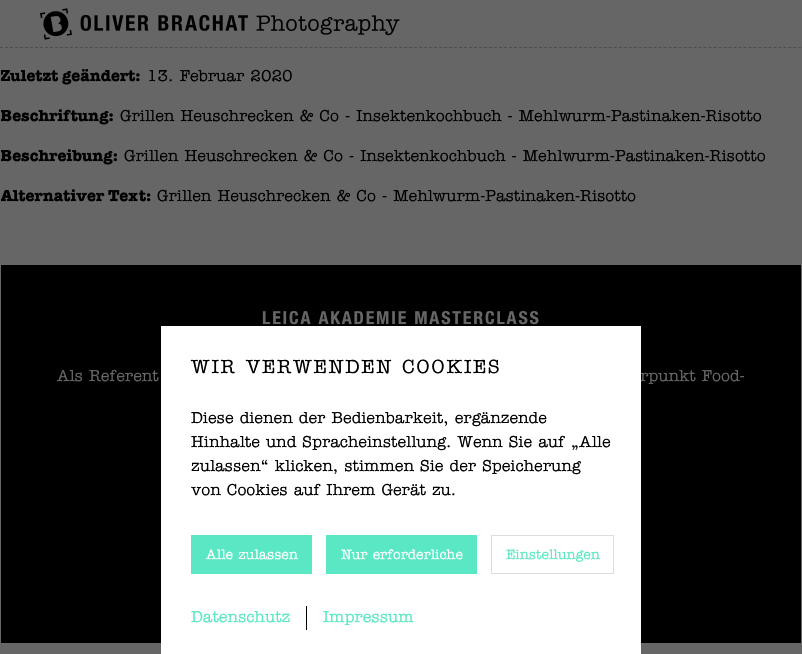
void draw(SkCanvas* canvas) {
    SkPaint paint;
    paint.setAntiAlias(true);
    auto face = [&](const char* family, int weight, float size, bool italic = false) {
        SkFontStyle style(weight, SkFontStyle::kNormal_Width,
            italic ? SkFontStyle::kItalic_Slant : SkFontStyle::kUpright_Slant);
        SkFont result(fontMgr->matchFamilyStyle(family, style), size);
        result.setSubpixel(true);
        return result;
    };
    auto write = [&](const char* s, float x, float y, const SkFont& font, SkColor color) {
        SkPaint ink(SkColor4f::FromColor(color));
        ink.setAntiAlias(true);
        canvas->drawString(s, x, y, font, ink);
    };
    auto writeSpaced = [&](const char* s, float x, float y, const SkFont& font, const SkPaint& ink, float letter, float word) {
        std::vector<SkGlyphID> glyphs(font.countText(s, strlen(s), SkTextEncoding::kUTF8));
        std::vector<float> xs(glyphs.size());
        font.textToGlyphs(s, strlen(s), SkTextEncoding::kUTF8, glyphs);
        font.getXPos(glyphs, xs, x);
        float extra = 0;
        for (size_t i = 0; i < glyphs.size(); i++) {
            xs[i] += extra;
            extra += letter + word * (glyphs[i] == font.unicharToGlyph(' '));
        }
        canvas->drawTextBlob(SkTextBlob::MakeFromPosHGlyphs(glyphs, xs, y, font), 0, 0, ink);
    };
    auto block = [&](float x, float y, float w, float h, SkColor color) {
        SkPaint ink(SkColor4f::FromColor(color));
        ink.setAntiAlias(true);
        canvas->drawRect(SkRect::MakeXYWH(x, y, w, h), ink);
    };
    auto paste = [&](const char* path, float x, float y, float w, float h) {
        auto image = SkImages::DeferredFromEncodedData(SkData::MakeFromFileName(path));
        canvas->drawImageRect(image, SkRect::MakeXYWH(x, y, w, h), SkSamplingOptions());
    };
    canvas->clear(SkColorSetRGB(102, 102, 102));
    paint.setStyle(SkPaint::kStroke_Style);
    paint.setStrokeWidth(1);
    paint.setColor(SkColorSetRGB(77, 77, 77));
    paint.setPathEffect(SkDashPathEffect::Make({{3, 1.99f}}, 0));
    canvas->drawPath(SkPathBuilder().moveTo(0, 47.5f).lineTo(802, 47.5f).detach(), paint);
    paint.setPathEffect(nullptr);
    paste("pic1.png", 40, 8, 32, 32);
    paste("pic2.png", 80, 15, 320, 21);
    canvas->save();
    canvas->clipRect(SkRect::MakeXYWH(1, 0, 800, 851));
    auto kFont1 = face("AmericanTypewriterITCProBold", 400, 16);
    write("Zuletzt geändert:", 0, 81, kFont1, SK_ColorBLACK);
    canvas->restore();
    auto kFont2 = face("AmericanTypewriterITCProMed", 400, 16);
    write("13. Februar 2020", 147, 81, kFont2, SK_ColorBLACK);
    canvas->save();
    canvas->clipRect(SkRect::MakeXYWH(1, 0, 800, 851));
    write("Beschriftung:", 0, 121, kFont1, SK_ColorBLACK);
    canvas->restore();
    write("Grillen Heuschrecken & Co - Insektenkochbuch - Mehlwurm-Pastinaken-Risotto", 120, 121, kFont2, SK_ColorBLACK);
    canvas->save();
    canvas->clipRect(SkRect::MakeXYWH(1, 0, 800, 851));
    write("Beschreibung:", 0, 161, kFont1, SK_ColorBLACK);
    canvas->restore();
    write("Grillen Heuschrecken & Co - Insektenkochbuch - Mehlwurm-Pastinaken-Risotto", 124, 161, kFont2, SK_ColorBLACK);
    canvas->save();
    canvas->clipRect(SkRect::MakeXYWH(1, 0, 800, 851));
    write("Alternativer Text:", 0, 201, kFont1, SK_ColorBLACK);
    canvas->restore();
    write("Grillen Heuschrecken & Co - Mehlwurm-Pastinaken-Risotto", 157, 201, kFont2, SK_ColorBLACK);
    block(1, 265, 800, 378, SK_ColorBLACK);
    auto kFont3 = face("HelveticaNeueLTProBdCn", 400, 18);
    paint.setStyle(SkPaint::kFill_Style);
    paint.setColor(SkColorSetRGB(102, 102, 102));
    writeSpaced("LEICA AKADEMIE MASTERCLASS", 262, 324, kFont3, paint, 1.8f, 0);
    write("Als Referent", 57, 381, kFont2, SkColorSetRGB(102, 102, 102));
    write("rpunkt Food-", 640, 381, kFont2, SkColorSetRGB(102, 102, 102));
    block(161, 326, 480, 328, SK_ColorWHITE);
    auto kFont4 = face("AmericanTypewriterITCProMed", 400, 19.25f);
    paint.setColor(SK_ColorBLACK);
    writeSpaced("WIR VERWENDEN COOKIES", 191, 373, kFont4, paint, 1.9f, 0);
    write("Diese dienen der Bedienbarkeit, ergänzende", 191, 423, kFont2, SK_ColorBLACK);
    write("Hinhalte und Spracheinstellung. Wenn Sie auf „Alle", 191, 447, kFont2, SK_ColorBLACK);
    write("zulassen“ klicken, stimmen Sie der Speicherung", 191, 471, kFont2, SK_ColorBLACK);
    write("von Cookies auf Ihrem Gerät zu.", 191, 495, kFont2, SK_ColorBLACK);
    block(191, 535, 121, 39, SkColorSetRGB(90, 232, 196));
    auto kFont5 = face("AmericanTypewriterITCProMed", 400, 13.75f);
    write("Alle zulassen", 206, 559, kFont5, SK_ColorWHITE);
    block(326, 535, 151, 39, SkColorSetRGB(90, 232, 196));
    write("Nur erforderliche", 341, 559, kFont5, SK_ColorWHITE);
    paint.setStyle(SkPaint::kStroke_Style);
    paint.setColor(SkColorSetRGB(221, 221, 221));
    canvas->drawRect(SkRect::MakeXYWH(491.5f, 535.5f, 122, 38), paint);
    write("Einstellungen", 506, 559, kFont5, SkColorSetRGB(90, 232, 196));
    block(306, 606, 1, 24, SK_ColorBLACK);
    write("Datenschutz", 191, 622, kFont2, SkColorSetRGB(90, 232, 196));
    write("Impressum", 323, 622, kFont2, SkColorSetRGB(90, 232, 196));
}
